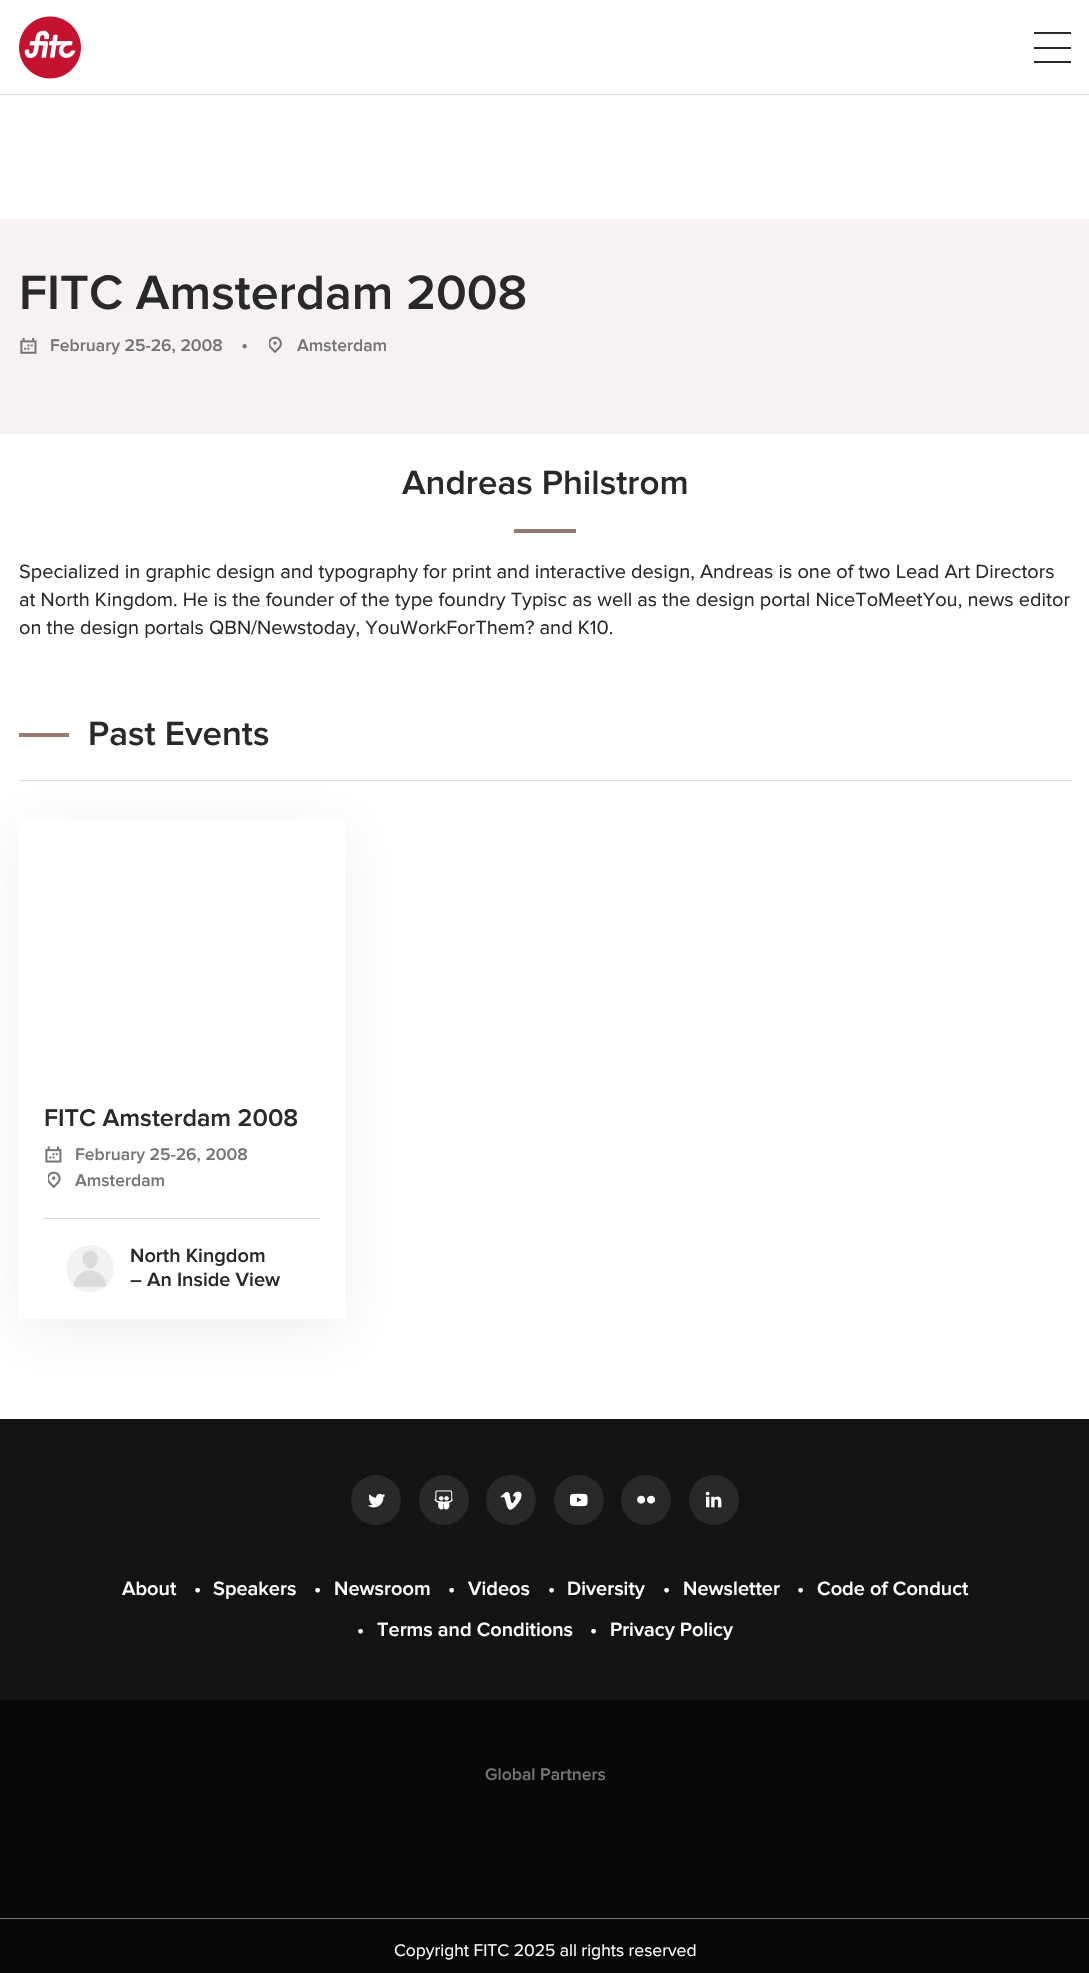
void draw(SkCanvas* canvas) {
    SkPaint paint;
    paint.setAntiAlias(true);
    auto face = [&](const char* family, int weight, float size, bool italic = false) {
        SkFontStyle style(weight, SkFontStyle::kNormal_Width,
            italic ? SkFontStyle::kItalic_Slant : SkFontStyle::kUpright_Slant);
        SkFont result(fontMgr->matchFamilyStyle(family, style), size);
        result.setSubpixel(true);
        return result;
    };
    auto write = [&](const char* s, float x, float y, const SkFont& font, SkColor color) {
        SkPaint ink(SkColor4f::FromColor(color));
        ink.setAntiAlias(true);
        canvas->drawString(s, x, y, font, ink);
    };
    auto block = [&](float x, float y, float w, float h, SkColor color) {
        SkPaint ink(SkColor4f::FromColor(color));
        ink.setAntiAlias(true);
        canvas->drawRect(SkRect::MakeXYWH(x, y, w, h), ink);
    };
    auto paste = [&](const char* path, float x, float y, float w, float h) {
        auto image = SkImages::DeferredFromEncodedData(SkData::MakeFromFileName(path));
        canvas->drawImageRect(image, SkRect::MakeXYWH(x, y, w, h), SkSamplingOptions());
    };
    canvas->clear(SK_ColorWHITE);
    block(0, 94, 1089, 1, SkColorSetRGB(219, 219, 219));
    paste("pic1.png", 19, 16, 62, 63);
    block(1034, 61, 37, 2, SkColorSetRGB(41, 41, 41));
    block(1034, 47, 37, 2, SkColorSetRGB(41, 41, 41));
    block(1034, 32, 37, 2, SkColorSetRGB(41, 41, 41));
    block(0, 219, 1089, 215, SkColorSetRGB(245, 242, 241));
    auto kFont1 = face("Proxima Nova", 600, 50);
    write("FITC Amsterdam 2008", 19, 309, kFont1, SkColorSetRGB(41, 41, 41));
    paste("pic2.png", 20, 338, 17, 16);
    auto kFont2 = face("Proxima Nova", 600, 17.5f);
    write("February 25-26, 2008", 50, 351, kFont2, SkColorSetRGB(117, 117, 117));
    auto kFont3 = face("Proxima Nova", 400, 20);
    write("•", 241, 351, kFont3, SkColorSetRGB(117, 117, 117));
    paste("pic3.png", 269, 336, 13, 17);
    write("Amsterdam", 297, 351, kFont2, SkColorSetRGB(117, 117, 117));
    auto kFont4 = face("Proxima Nova", 600, 35);
    write("Andreas Philstrom", 402, 494, kFont4, SkColorSetRGB(41, 41, 41));
    block(514, 529, 62, 4, SkColorSetRGB(149, 122, 113));
    write("Specialized in graphic design and typography for print and interactive design, Andreas is one of two Lead Art Directors", 19, 578, kFont3, SkColorSetRGB(41, 41, 41));
    write("at North Kingdom. He is the founder of the type foundry Typisc as well as the design portal NiceToMeetYou, news editor", 19, 606, kFont3, SkColorSetRGB(41, 41, 41));
    write("on the design portals QBN/Newstoday, YouWorkForThem? and K10.", 19, 634, kFont3, SkColorSetRGB(41, 41, 41));
    block(19, 733, 50, 4, SkColorSetRGB(149, 122, 113));
    write("Past Events", 88, 745, kFont4, SkColorSetRGB(41, 41, 41));
    block(19, 780, 1052, 1, SkColorSetRGB(219, 219, 219));
    paint.setColor(SkColorSetARGB(20, 41, 41, 41));
    paint.setMaskFilter(SkMaskFilter::MakeBlur(kNormal_SkBlurStyle, 25));
    canvas->drawRect(SkRect::MakeXYWH(19, 831, 326, 500), paint);
    paint.setMaskFilter(nullptr);
    block(19, 819, 326, 500, SK_ColorWHITE);
    auto kFont5 = face("Proxima Nova", 600, 25);
    write("FITC Amsterdam 2008", 44, 1126, kFont5, SkColorSetRGB(41, 41, 41));
    paste("pic4.png", 45, 1146, 17, 17);
    write("February 25-26, 2008", 75, 1160, kFont2, SkColorSetRGB(117, 117, 117));
    paste("pic5.png", 48, 1171, 13, 17);
    write("Amsterdam", 75, 1186, kFont2, SkColorSetRGB(117, 117, 117));
    block(44, 1218, 276, 1, SkColorSetRGB(219, 219, 219));
    paste("pic6.png", 66, 1245, 48, 47);
    auto kFont6 = face("Proxima Nova", 600, 20);
    write("North Kingdom", 130, 1262, kFont6, SkColorSetRGB(41, 41, 41));
    write("– An Inside View", 130, 1286, kFont6, SkColorSetRGB(41, 41, 41));
    block(0, 1419, 1089, 281, SkColorSetRGB(20, 20, 20));
    paint.setColor(SkColorSetRGB(41, 41, 41));
    canvas->drawCircle(376, 1500, 25, paint);
    paste("pic7.png", 368, 1493, 17, 15);
    canvas->drawCircle(444, 1500, 25, paint);
    paste("pic8.png", 434, 1490, 20, 20);
    canvas->drawCircle(511, 1500, 25, paint);
    paste("pic9.png", 500, 1491, 22, 19);
    canvas->drawCircle(579, 1500, 25, paint);
    paste("pic10.png", 569, 1493, 19, 14);
    canvas->drawCircle(646, 1500, 25, paint);
    paste("pic11.png", 637, 1495, 18, 9);
    canvas->drawCircle(714, 1500, 25, paint);
    paste("pic12.png", 705, 1491, 17, 17);
    write("About", 122, 1595, kFont6, SK_ColorWHITE);
    write("•", 194, 1595, kFont6, SK_ColorWHITE);
    write("Speakers", 213, 1595, kFont6, SK_ColorWHITE);
    write("•", 314, 1595, kFont6, SK_ColorWHITE);
    write("Newsroom", 334, 1595, kFont6, SK_ColorWHITE);
    write("•", 448, 1595, kFont6, SK_ColorWHITE);
    write("Videos", 468, 1595, kFont6, SK_ColorWHITE);
    write("•", 548, 1595, kFont6, SK_ColorWHITE);
    write("Diversity", 567, 1595, kFont6, SK_ColorWHITE);
    write("•", 663, 1595, kFont6, SK_ColorWHITE);
    write("Newsletter", 683, 1595, kFont6, SK_ColorWHITE);
    write("•", 797, 1595, kFont6, SK_ColorWHITE);
    write("Code of Conduct", 817, 1595, kFont6, SK_ColorWHITE);
    write("•", 357, 1636, kFont6, SK_ColorWHITE);
    write("Terms and Conditions", 377, 1636, kFont6, SK_ColorWHITE);
    write("•", 590, 1636, kFont6, SK_ColorWHITE);
    write("Privacy Policy", 610, 1636, kFont6, SK_ColorWHITE);
    block(0, 1700, 1089, 273, SkColorSetRGB(8, 8, 8));
    write("Global Partners", 485, 1780, kFont2, SkColorSetRGB(117, 117, 117));
    block(0, 1918, 1089, 1, SkColorSetRGB(117, 117, 117));
    auto kFont7 = face("Proxima Nova", 400, 17.5f);
    write("Copyright FITC 2025 all rights reserved", 394, 1956, kFont7, SK_ColorWHITE);
}
